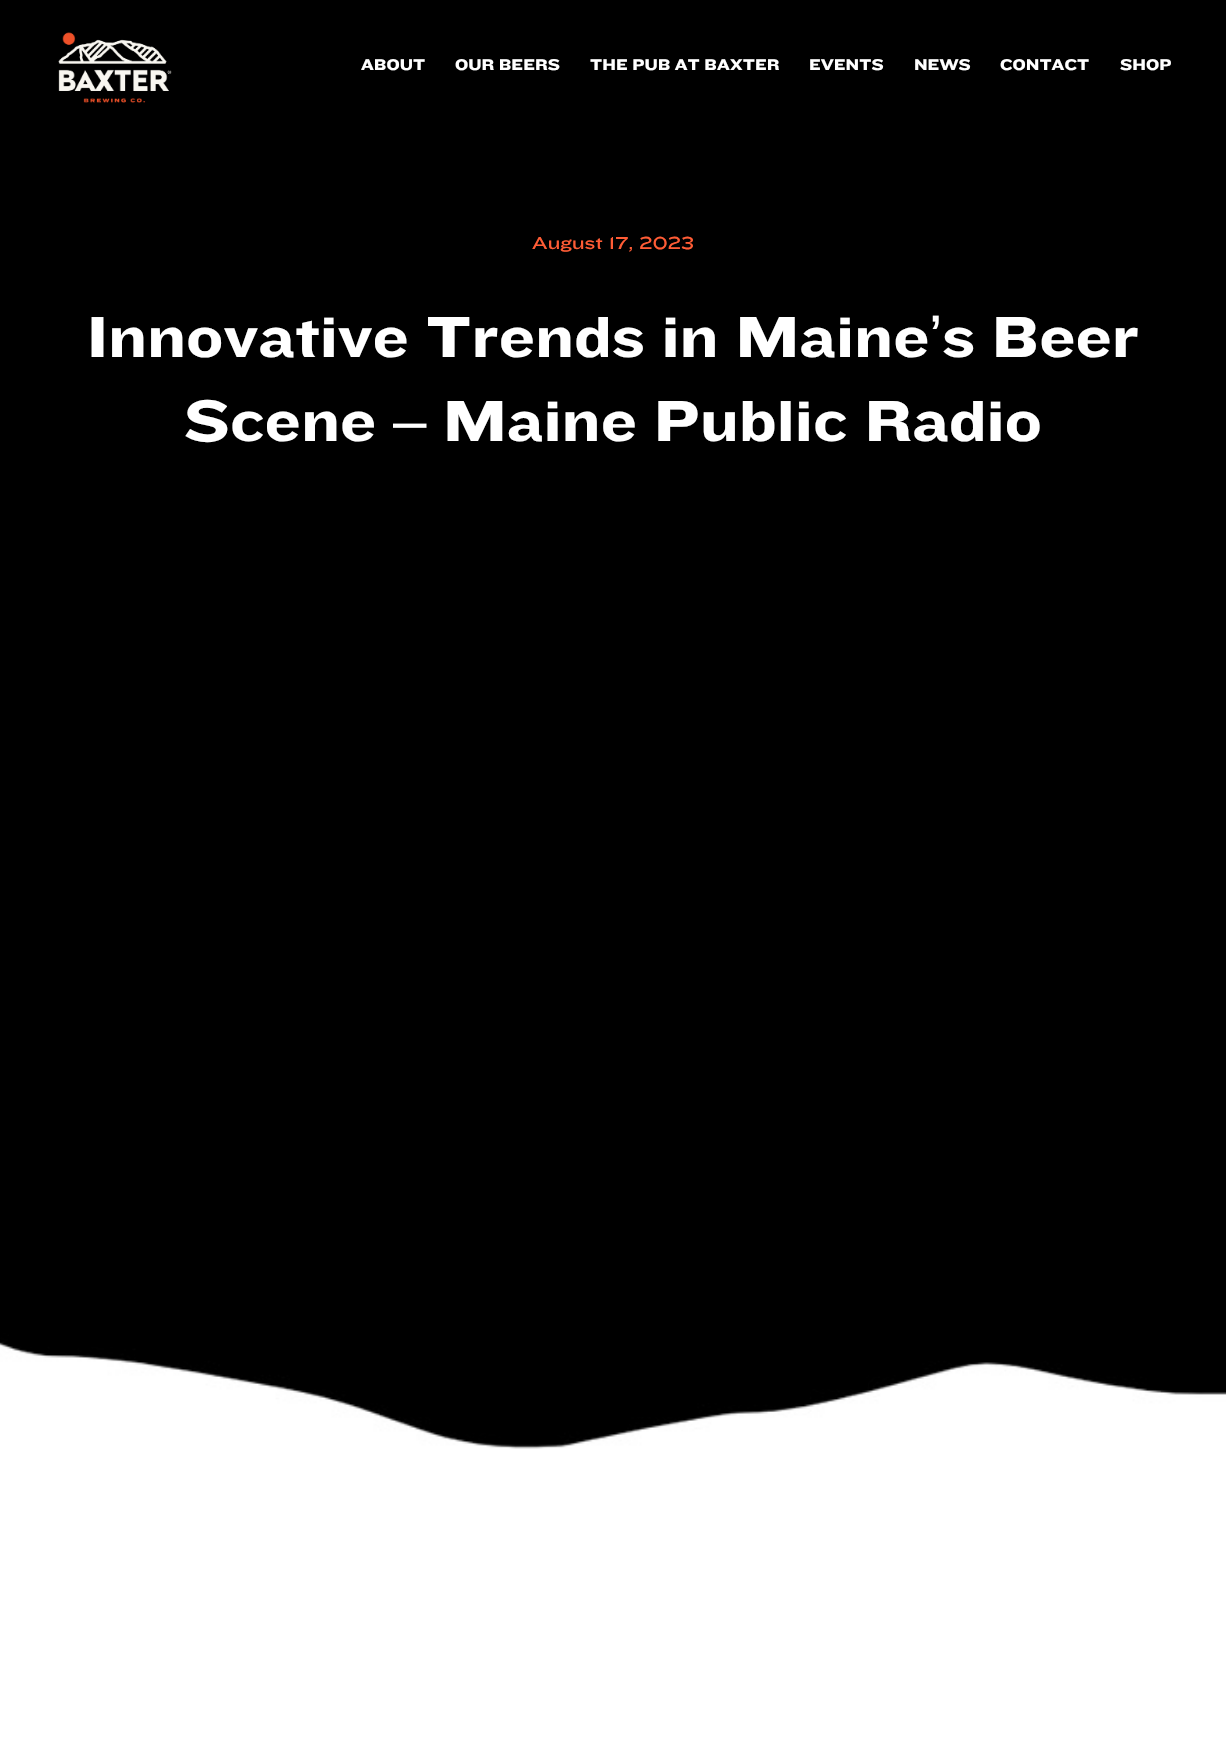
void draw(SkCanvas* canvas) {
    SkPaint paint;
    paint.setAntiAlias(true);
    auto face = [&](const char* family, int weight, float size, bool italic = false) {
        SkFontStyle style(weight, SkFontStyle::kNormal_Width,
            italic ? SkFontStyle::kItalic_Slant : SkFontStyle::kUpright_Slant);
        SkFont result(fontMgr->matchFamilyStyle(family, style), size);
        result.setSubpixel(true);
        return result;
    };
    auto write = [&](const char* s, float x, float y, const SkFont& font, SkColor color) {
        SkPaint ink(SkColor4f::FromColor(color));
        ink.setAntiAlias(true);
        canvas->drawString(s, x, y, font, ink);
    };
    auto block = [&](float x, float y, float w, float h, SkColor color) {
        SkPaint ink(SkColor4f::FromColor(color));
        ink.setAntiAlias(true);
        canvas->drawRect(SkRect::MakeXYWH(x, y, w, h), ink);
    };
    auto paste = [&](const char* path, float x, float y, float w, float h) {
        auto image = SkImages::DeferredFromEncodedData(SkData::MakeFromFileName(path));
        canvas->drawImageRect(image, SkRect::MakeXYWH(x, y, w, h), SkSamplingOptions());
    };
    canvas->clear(SK_ColorWHITE);
    block(0, 0, 1226, 504, SK_ColorBLACK);
    paste("pic1.png", 58, 32, 114, 71);
    auto kFont1 = face("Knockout", 500, 16);
    write("ABOUT", 361, 70, kFont1, SK_ColorWHITE);
    write("OUR BEERS", 455, 70, kFont1, SK_ColorWHITE);
    write("THE PUB AT BAXTER", 590, 70, kFont1, SK_ColorWHITE);
    write("EVENTS", 809, 70, kFont1, SK_ColorWHITE);
    write("NEWS", 914, 70, kFont1, SK_ColorWHITE);
    write("CONTACT", 1000, 70, kFont1, SK_ColorWHITE);
    write("SHOP", 1120, 70, kFont1, SK_ColorWHITE);
    auto kFont2 = face("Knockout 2", 500, 18);
    write("August 17, 2023", 532, 249, kFont2, SkColorSetRGB(255, 92, 53));
    auto kFont3 = face("Knockout", 500, 60);
    write("Innovative Trends in Maine", 87, 357, kFont3, SK_ColorWHITE);
    auto kFont4 = face("Liberation Sans", 400, 60);
    write("’", 929, 357, kFont4, SK_ColorWHITE);
    write("s Beer", 942, 357, kFont3, SK_ColorWHITE);
    write("Scene", 184, 441, kFont3, SK_ColorWHITE);
    write("–", 393, 441, kFont4, SK_ColorWHITE);
    write("Maine Public Radio", 443, 441, kFont3, SK_ColorWHITE);
    paste("pic2.png", 0, 504, 1226, 945);
}
